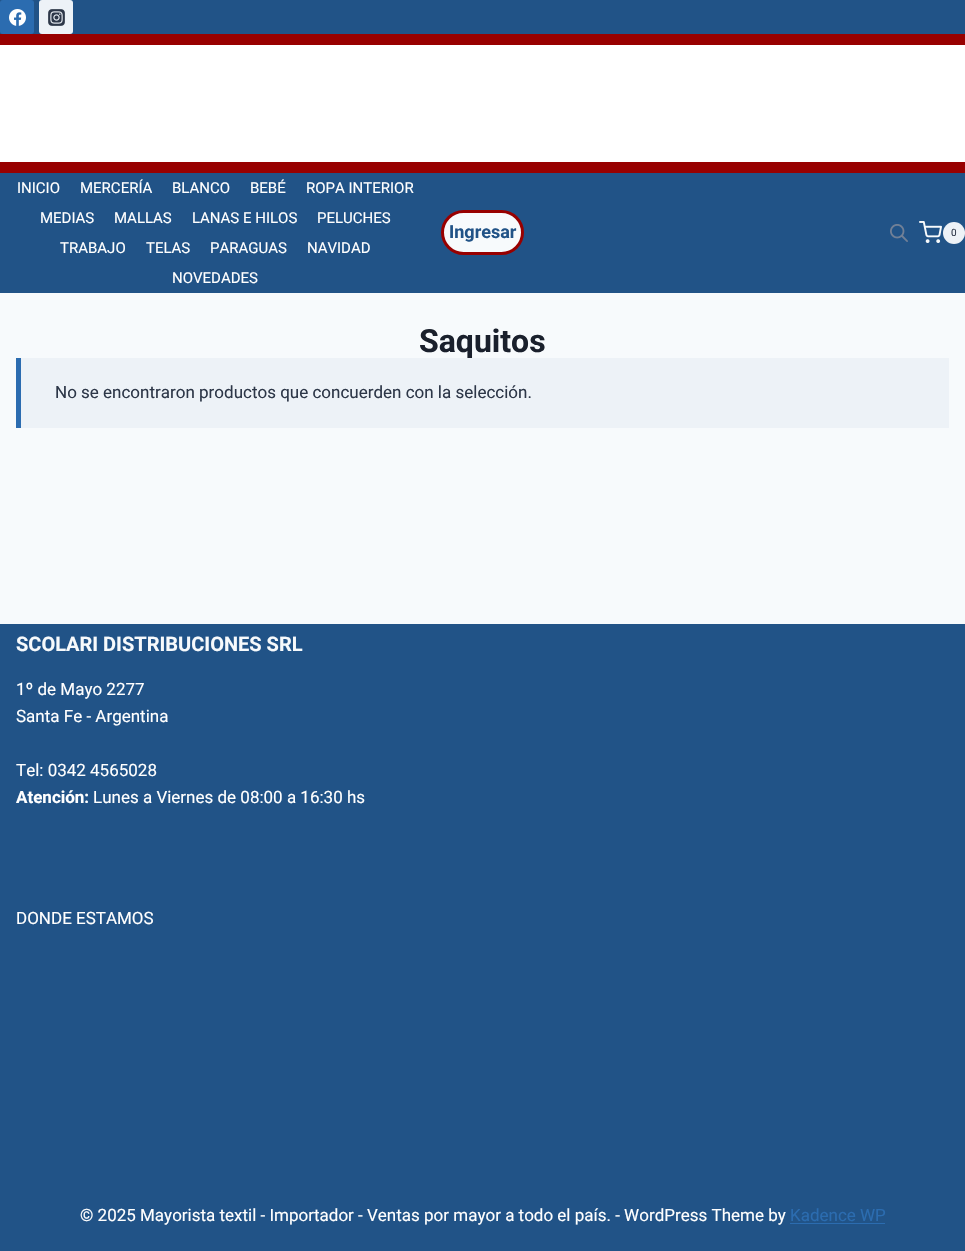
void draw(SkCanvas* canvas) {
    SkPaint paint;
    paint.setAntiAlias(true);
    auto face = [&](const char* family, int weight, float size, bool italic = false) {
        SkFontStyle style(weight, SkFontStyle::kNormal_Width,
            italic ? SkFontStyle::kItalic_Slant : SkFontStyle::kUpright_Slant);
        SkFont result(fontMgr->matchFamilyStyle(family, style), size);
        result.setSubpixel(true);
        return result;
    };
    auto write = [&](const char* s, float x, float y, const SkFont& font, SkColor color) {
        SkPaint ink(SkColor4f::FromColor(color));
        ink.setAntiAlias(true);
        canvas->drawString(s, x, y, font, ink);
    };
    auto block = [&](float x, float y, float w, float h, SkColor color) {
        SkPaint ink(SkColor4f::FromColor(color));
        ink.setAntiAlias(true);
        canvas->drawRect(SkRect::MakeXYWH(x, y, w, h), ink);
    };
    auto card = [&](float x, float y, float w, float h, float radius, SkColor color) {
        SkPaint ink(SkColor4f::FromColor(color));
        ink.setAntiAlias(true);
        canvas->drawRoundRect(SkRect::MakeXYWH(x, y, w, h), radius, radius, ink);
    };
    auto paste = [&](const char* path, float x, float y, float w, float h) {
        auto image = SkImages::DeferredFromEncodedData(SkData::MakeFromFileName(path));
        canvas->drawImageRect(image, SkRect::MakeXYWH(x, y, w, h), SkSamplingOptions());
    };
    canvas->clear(SkColorSetRGB(247, 250, 252));
    block(0, 0, 965, 34, SkColorSetRGB(33, 83, 135));
    card(0, 0, 34, 34, 3, SkColorSetRGB(43, 108, 176));
    paste("pic1.png", 9, 9, 17, 17);
    card(39, 0, 34, 34, 3, SkColorSetRGB(237, 242, 247));
    paste("pic2.png", 48, 9, 17, 17);
    block(0, 45, 965, 117, SK_ColorWHITE);
    block(0, 34, 965, 11, SkColorSetRGB(152, 0, 0));
    block(0, 162, 965, 11, SkColorSetRGB(152, 0, 0));
    block(0, 173, 965, 120, SkColorSetRGB(33, 83, 135));
    auto kFont1 = face("Roboto", 400, 15);
    write("INICIO", 17, 193, kFont1, SK_ColorWHITE);
    write("MERCERÍA", 80, 193, kFont1, SK_ColorWHITE);
    write("BLANCO", 172, 193, kFont1, SK_ColorWHITE);
    write("BEBÉ", 250, 193, kFont1, SK_ColorWHITE);
    write("ROPA INTERIOR", 306, 193, kFont1, SK_ColorWHITE);
    write("MEDIAS", 40, 223, kFont1, SK_ColorWHITE);
    write("MALLAS", 114, 223, kFont1, SK_ColorWHITE);
    write("LANAS E HILOS", 192, 223, kFont1, SK_ColorWHITE);
    write("PELUCHES", 317, 223, kFont1, SK_ColorWHITE);
    write("TRABAJO", 60, 253, kFont1, SK_ColorWHITE);
    write("TELAS", 146, 253, kFont1, SK_ColorWHITE);
    write("PARAGUAS", 210, 253, kFont1, SK_ColorWHITE);
    write("NAVIDAD", 307, 253, kFont1, SK_ColorWHITE);
    write("NOVEDADES", 172, 283, kFont1, SK_ColorWHITE);
    paint.setColor(SkColorSetRGB(247, 250, 252));
    canvas->drawRoundRect(SkRect::MakeXYWH(442.5f, 211.5f, 80, 42), 21, 21, paint);
    paint.setStyle(SkPaint::kStroke_Style);
    paint.setStrokeWidth(3);
    paint.setColor(SkColorSetRGB(152, 0, 0));
    canvas->drawRoundRect(SkRect::MakeXYWH(442.5f, 211.5f, 80, 42), 21, 21, paint);
    auto kFont2 = face("Roboto", 700, 18);
    write("Ingresar", 449, 238, kFont2, SkColorSetRGB(33, 83, 135));
    paste("pic3.png", 890, 224, 18, 18);
    paste("pic4.png", 919, 221, 23, 22);
    paint.setStyle(SkPaint::kFill_Style);
    paint.setColor(SkColorSetRGB(237, 242, 247));
    canvas->drawCircle(954, 233, 11, paint);
    auto kFont3 = face("Roboto", 400, 10);
    write("0", 951, 236, kFont3, SkColorSetRGB(45, 55, 72));
    auto kFont4 = face("Roboto", 700, 32);
    write("Saquitos", 419, 352, kFont4, SkColorSetRGB(26, 32, 44));
    block(21, 358, 928, 70, SkColorSetRGB(237, 242, 247));
    block(16, 358, 5, 70, SkColorSetRGB(43, 108, 176));
    auto kFont5 = face("Roboto", 400, 17);
    write("No se encontraron productos que concuerden con la selección.", 55, 398, kFont5, SkColorSetRGB(45, 55, 72));
    block(0, 624, 965, 627, SkColorSetRGB(33, 83, 135));
    auto kFont6 = face("Roboto", 700, 20);
    write("SCOLARI DISTRIBUCIONES SRL", 16, 651, kFont6, SkColorSetRGB(247, 250, 252));
    write("1º de Mayo 2277", 16, 695, kFont5, SK_ColorWHITE);
    write("Santa Fe - Argentina", 16, 722, kFont5, SK_ColorWHITE);
    write("Tel: 0342 4565028", 16, 776, kFont5, SK_ColorWHITE);
    auto kFont7 = face("Roboto", 700, 17);
    write("Atención:", 16, 803, kFont7, SK_ColorWHITE);
    write("Lunes a Viernes de 08:00 a 16:30 hs", 93, 803, kFont5, SK_ColorWHITE);
    write("DONDE ESTAMOS", 16, 924, kFont5, SK_ColorWHITE);
    write("© 2025 Mayorista textil - Importador - Ventas por mayor a todo el país. - WordPress Theme by", 80, 1221, kFont5, SK_ColorWHITE);
    write("Kadence WP", 790, 1221, kFont5, SkColorSetRGB(43, 108, 176));
    block(790, 1223, 95, 1, SkColorSetRGB(43, 108, 176));
}
